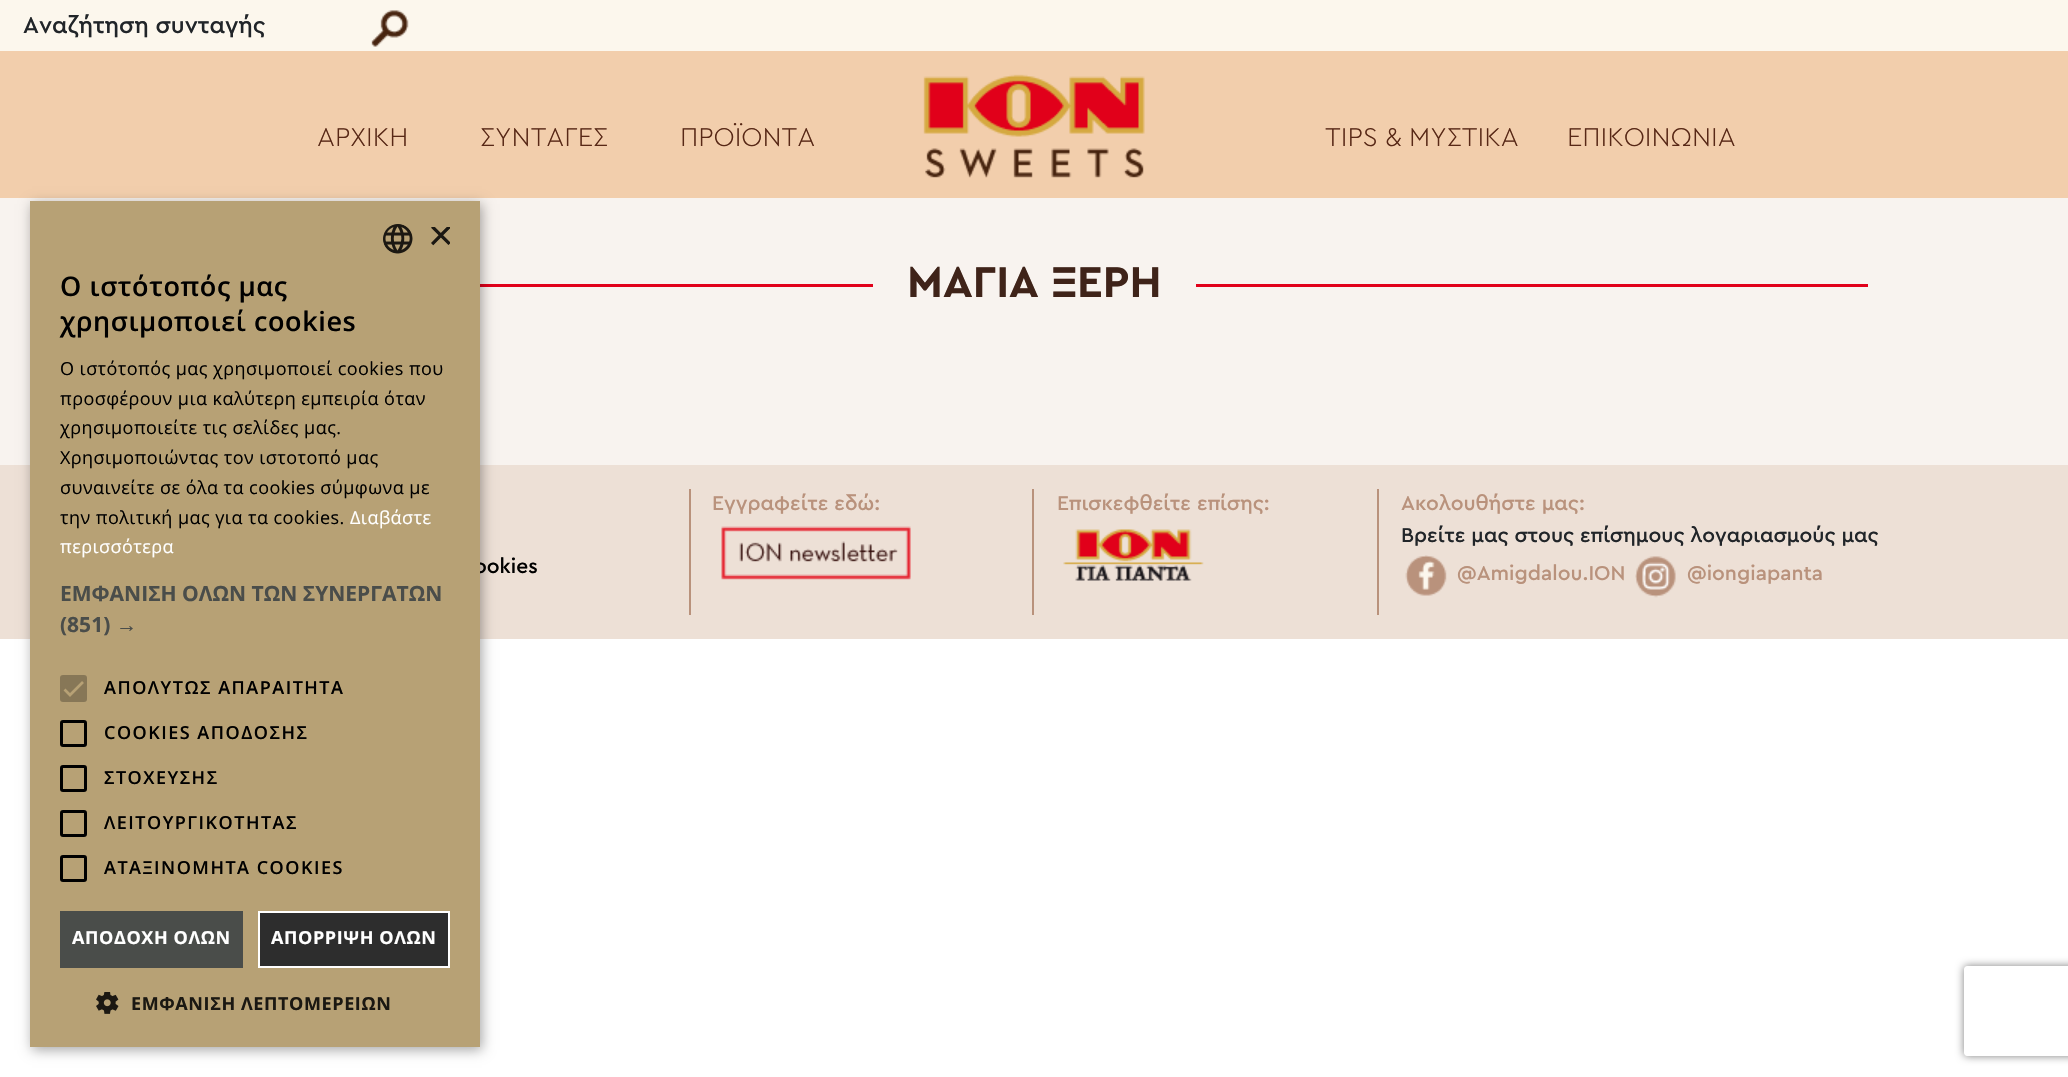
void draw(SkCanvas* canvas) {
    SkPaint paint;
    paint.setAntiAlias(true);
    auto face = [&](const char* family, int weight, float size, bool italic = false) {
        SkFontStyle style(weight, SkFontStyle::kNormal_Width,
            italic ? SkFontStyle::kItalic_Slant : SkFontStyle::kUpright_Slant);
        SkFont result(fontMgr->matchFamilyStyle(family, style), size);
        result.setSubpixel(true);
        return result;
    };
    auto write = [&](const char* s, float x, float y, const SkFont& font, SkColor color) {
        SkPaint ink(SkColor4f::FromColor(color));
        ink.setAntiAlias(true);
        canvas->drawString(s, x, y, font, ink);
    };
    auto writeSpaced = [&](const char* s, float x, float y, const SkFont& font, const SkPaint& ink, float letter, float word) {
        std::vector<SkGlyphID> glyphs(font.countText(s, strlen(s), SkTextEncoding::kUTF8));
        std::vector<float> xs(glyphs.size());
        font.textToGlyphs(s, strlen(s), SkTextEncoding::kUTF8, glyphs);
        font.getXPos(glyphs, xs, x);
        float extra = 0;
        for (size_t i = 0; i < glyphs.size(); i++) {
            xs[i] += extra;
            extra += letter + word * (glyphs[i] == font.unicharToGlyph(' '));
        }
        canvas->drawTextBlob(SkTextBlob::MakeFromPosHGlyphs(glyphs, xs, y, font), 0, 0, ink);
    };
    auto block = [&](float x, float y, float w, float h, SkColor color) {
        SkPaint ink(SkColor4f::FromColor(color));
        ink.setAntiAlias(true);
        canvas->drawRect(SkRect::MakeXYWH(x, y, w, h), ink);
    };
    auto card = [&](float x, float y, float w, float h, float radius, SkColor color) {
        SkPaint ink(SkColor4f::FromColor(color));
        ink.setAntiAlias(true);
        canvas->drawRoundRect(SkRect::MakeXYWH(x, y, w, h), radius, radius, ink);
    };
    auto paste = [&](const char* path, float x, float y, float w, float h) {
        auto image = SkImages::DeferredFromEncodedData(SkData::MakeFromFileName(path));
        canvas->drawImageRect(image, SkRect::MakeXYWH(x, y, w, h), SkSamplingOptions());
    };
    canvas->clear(SK_ColorWHITE);
    block(0, 0, 2068, 51, SkColorSetRGB(252, 247, 237));
    auto kFont1 = face("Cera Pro", 500, 24);
    write("Αναζήτηση συνταγής", 23, 33, kFont1, SkColorSetRGB(33, 37, 41));
    paste("pic1.png", 371, 10, 38, 37);
    block(0, 51, 2068, 147, SkColorSetRGB(242, 206, 172));
    auto kFont2 = face("Cera Pro", 300, 27);
    write("ΑΡΧΙΚΗ", 317, 146, kFont2, SkColorSetRGB(88, 40, 22));
    write("ΣΥΝΤΑΓΕΣ", 480, 146, kFont2, SkColorSetRGB(88, 40, 22));
    write("ΠΡΟΪΟΝΤΑ", 680, 146, kFont2, SkColorSetRGB(88, 40, 22));
    paste("pic2.png", 923, 74, 222, 104);
    write("TIPS & ΜΥΣΤΙΚΑ", 1325, 146, kFont2, SkColorSetRGB(88, 40, 22));
    write("ΕΠΙΚΟΙΝΩΝΙΑ", 1567, 146, kFont2, SkColorSetRGB(88, 40, 22));
    block(0, 198, 2068, 267, SkColorSetRGB(248, 243, 239));
    block(480, 284, 393, 3, SkColorSetRGB(225, 0, 26));
    block(0, 465, 2068, 174, SkColorSetRGB(237, 224, 214));
    paint.setColor(SkColorSetARGB(89, 0, 0, 0));
    paint.setMaskFilter(SkMaskFilter::MakeBlur(kNormal_SkBlurStyle, 6));
    canvas->drawRect(SkRect::MakeXYWH(32, 204, 450, 846), paint);
    paint.setMaskFilter(nullptr);
    auto kFont3 = face("Cera Pro", 500, 21);
    write("ookies", 474, 573, kFont3, SK_ColorBLACK);
    block(30, 201, 450, 846, SkColorSetRGB(183, 161, 117));
    paste("pic3.png", 383, 224, 30, 30);
    canvas->save();
    canvas->clipRect(SkRect::MakeXYWH(428, 227, 22, 22));
    auto kFont4 = face("Liberation Sans", 400, 44);
    write("×", 428, 250, kFont4, SkColorSetRGB(27, 24, 18));
    canvas->restore();
    auto kFont5 = face("Open Sans", 600, 27);
    paint.setColor(SK_ColorBLACK);
    writeSpaced("Ο ιστότοπός μας", 60, 296, kFont5, paint, 0.6f, 0);
    writeSpaced("χρησιμοποιεί cookies", 60, 331, kFont5, paint, 0.6f, 0);
    auto kFont6 = face("Open Sans", 400, 18);
    writeSpaced("Ο ιστότοπός μας χρησιμοποιεί cookies που", 60, 375, kFont6, paint, 0.45f, 0);
    writeSpaced("προσφέρουν μια καλύτερη εμπειρία όταν", 60, 405, kFont6, paint, 0.45f, 0);
    writeSpaced("χρησιμοποιείτε τις σελίδες μας.", 60, 434, kFont6, paint, 0.45f, 0);
    writeSpaced("Χρησιμοποιώντας τον ιστοτοπό μας", 60, 464, kFont6, paint, 0.45f, 0);
    writeSpaced("συναινείτε σε όλα τα cookies σύμφωνα με", 60, 494, kFont6, paint, 0.45f, 0);
    writeSpaced("την πολιτική μας για τα cookies.", 60, 524, kFont6, paint, 0.45f, 0);
    paint.setColor(SK_ColorWHITE);
    writeSpaced("Διαβάστε", 350, 524, kFont6, paint, 0.45f, 0);
    writeSpaced("περισσότερα", 60, 553, kFont6, paint, 0.45f, 0);
    auto kFont7 = face("Open Sans", 700, 21);
    write("ΕΜΦΑΝΙΣΗ ΟΛΩΝ ΤΩΝ ΣΥΝΕΡΓΑΤΩΝ", 60, 601, kFont7, SkColorSetRGB(74, 77, 74));
    write("(851)", 60, 632, kFont7, SkColorSetRGB(74, 77, 74));
    auto kFont8 = face("Liberation Sans", 700, 21);
    write("→", 116, 632, kFont8, SkColorSetRGB(74, 77, 74));
    card(60, 675, 27, 27, 3, SkColorSetRGB(135, 119, 87));
    paint.setStyle(SkPaint::kStroke_Style);
    paint.setStrokeWidth(2.7f);
    paint.setColor(SkColorSetRGB(183, 161, 117));
    canvas->drawPath(SkPathBuilder().moveTo(64.5f, 689.5f).lineTo(70, 695).lineTo(83, 682).detach(), paint);
    auto kFont9 = face("Open Sans", 600, 18);
    paint.setStyle(SkPaint::kFill_Style);
    paint.setColor(SK_ColorBLACK);
    writeSpaced("ΑΠΟΛΥΤΩΣ ΑΠΑΡΑΙΤΗΤΑ", 104, 694, kFont9, paint, 1.5f, 0);
    paint.setStyle(SkPaint::kStroke_Style);
    paint.setStrokeWidth(3);
    canvas->drawRoundRect(SkRect::MakeXYWH(61.5f, 721.5f, 24, 24), 1.5f, 1.5f, paint);
    paint.setStyle(SkPaint::kFill_Style);
    writeSpaced("COOKIES AΠΟΔΟΣΗΣ", 104, 739, kFont9, paint, 1.5f, 0);
    paint.setStyle(SkPaint::kStroke_Style);
    canvas->drawRoundRect(SkRect::MakeXYWH(61.5f, 766.5f, 24, 24), 1.5f, 1.5f, paint);
    paint.setStyle(SkPaint::kFill_Style);
    writeSpaced("ΣΤΟΧΕΥΣΗΣ", 104, 784, kFont9, paint, 1.5f, 0);
    paint.setStyle(SkPaint::kStroke_Style);
    canvas->drawRoundRect(SkRect::MakeXYWH(61.5f, 811.5f, 24, 24), 1.5f, 1.5f, paint);
    paint.setStyle(SkPaint::kFill_Style);
    writeSpaced("ΛΕΙΤΟΥΡΓΙΚΟΤΗΤΑΣ", 104, 829, kFont9, paint, 1.5f, 0);
    paint.setStyle(SkPaint::kStroke_Style);
    canvas->drawRoundRect(SkRect::MakeXYWH(61.5f, 856.5f, 24, 24), 1.5f, 1.5f, paint);
    paint.setStyle(SkPaint::kFill_Style);
    writeSpaced("ΑΤΑΞΙΝΟΜΗΤΑ COOKIES", 104, 874, kFont9, paint, 1.5f, 0);
    block(60, 911, 183, 57, SkColorSetRGB(74, 77, 74));
    auto kFont10 = face("Open Sans", 700, 18);
    paint.setColor(SK_ColorWHITE);
    writeSpaced("ΑΠΟΔΟΧΗ ΟΛΩΝ", 72, 944, kFont10, paint, 0.6f, 0);
    paint.setColor(SkColorSetRGB(45, 45, 45));
    canvas->drawRect(SkRect::MakeXYWH(259, 912, 190, 55), paint);
    paint.setStyle(SkPaint::kStroke_Style);
    paint.setStrokeWidth(2);
    paint.setColor(SK_ColorWHITE);
    canvas->drawRect(SkRect::MakeXYWH(259, 912, 190, 55), paint);
    paint.setStyle(SkPaint::kFill_Style);
    writeSpaced("ΑΠΟΡΡΙΨΗ ΟΛΩΝ", 271, 944, kFont10, paint, 0.6f, 0);
    paste("pic4.png", 96, 992, 23, 22);
    paint.setColor(SkColorSetRGB(27, 24, 18));
    writeSpaced("ΕΜΦΑΝΙΣΗ ΛΕΠΤΟΜΕΡΕΙΩΝ", 131, 1010, kFont10, paint, 0.6f, 0);
    auto kFont11 = face("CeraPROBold", 700, 45);
    write("ΜΑΓΙΑ ΞΕΡΗ", 907, 297, kFont11, SkColorSetRGB(63, 35, 25));
    block(1196, 284, 672, 3, SkColorSetRGB(225, 0, 26));
    block(689, 489, 2, 126, SkColorSetRGB(185, 146, 124));
    block(1032, 489, 2, 126, SkColorSetRGB(185, 146, 124));
    write("Εγγραφείτε εδώ:", 712, 510, kFont3, SkColorSetRGB(185, 146, 124));
    paste("pic5.png", 721, 526, 190, 54);
    block(1377, 489, 2, 126, SkColorSetRGB(185, 146, 124));
    write("Επισκεφθείτε επίσης:", 1057, 510, kFont3, SkColorSetRGB(185, 146, 124));
    paste("pic6.png", 1063, 529, 141, 52);
    write("Ακολουθήστε μας:", 1401, 510, kFont3, SkColorSetRGB(185, 146, 124));
    write("Βρείτε μας στους επίσημους λογαριασμούς μας", 1401, 542, kFont3, SkColorSetRGB(33, 37, 41));
    paste("pic7.png", 1405, 555, 42, 41);
    write("@Amigdalou.ION", 1457, 580, kFont3, SkColorSetRGB(185, 146, 124));
    paste("pic8.png", 1635, 556, 41, 42);
    write("@iongiapanta", 1687, 580, kFont3, SkColorSetRGB(185, 146, 124));
    canvas->save();
    canvas->clipPath(SkPathBuilder(SkPathFillType::kEvenOdd).moveTo(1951, 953).lineTo(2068, 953).lineTo(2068, 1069).lineTo(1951, 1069).close().moveTo(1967, 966).lineTo(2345, 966).cubicTo(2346.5f, 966, 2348, 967.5f, 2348, 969).lineTo(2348, 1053).cubicTo(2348, 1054.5f, 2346.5f, 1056, 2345, 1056).lineTo(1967, 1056).cubicTo(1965.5f, 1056, 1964, 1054.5f, 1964, 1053).lineTo(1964, 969).cubicTo(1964, 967.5f, 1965.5f, 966, 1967, 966).close().detach(), true);
    paint.setColor(SkColorSetRGB(128, 128, 128));
    paint.setMaskFilter(SkMaskFilter::MakeBlur(kNormal_SkBlurStyle, 4));
    canvas->drawRoundRect(SkRect::MakeXYWH(1964, 966, 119, 90), 3, 3, paint);
    paint.setMaskFilter(nullptr);
    canvas->restore();
}
